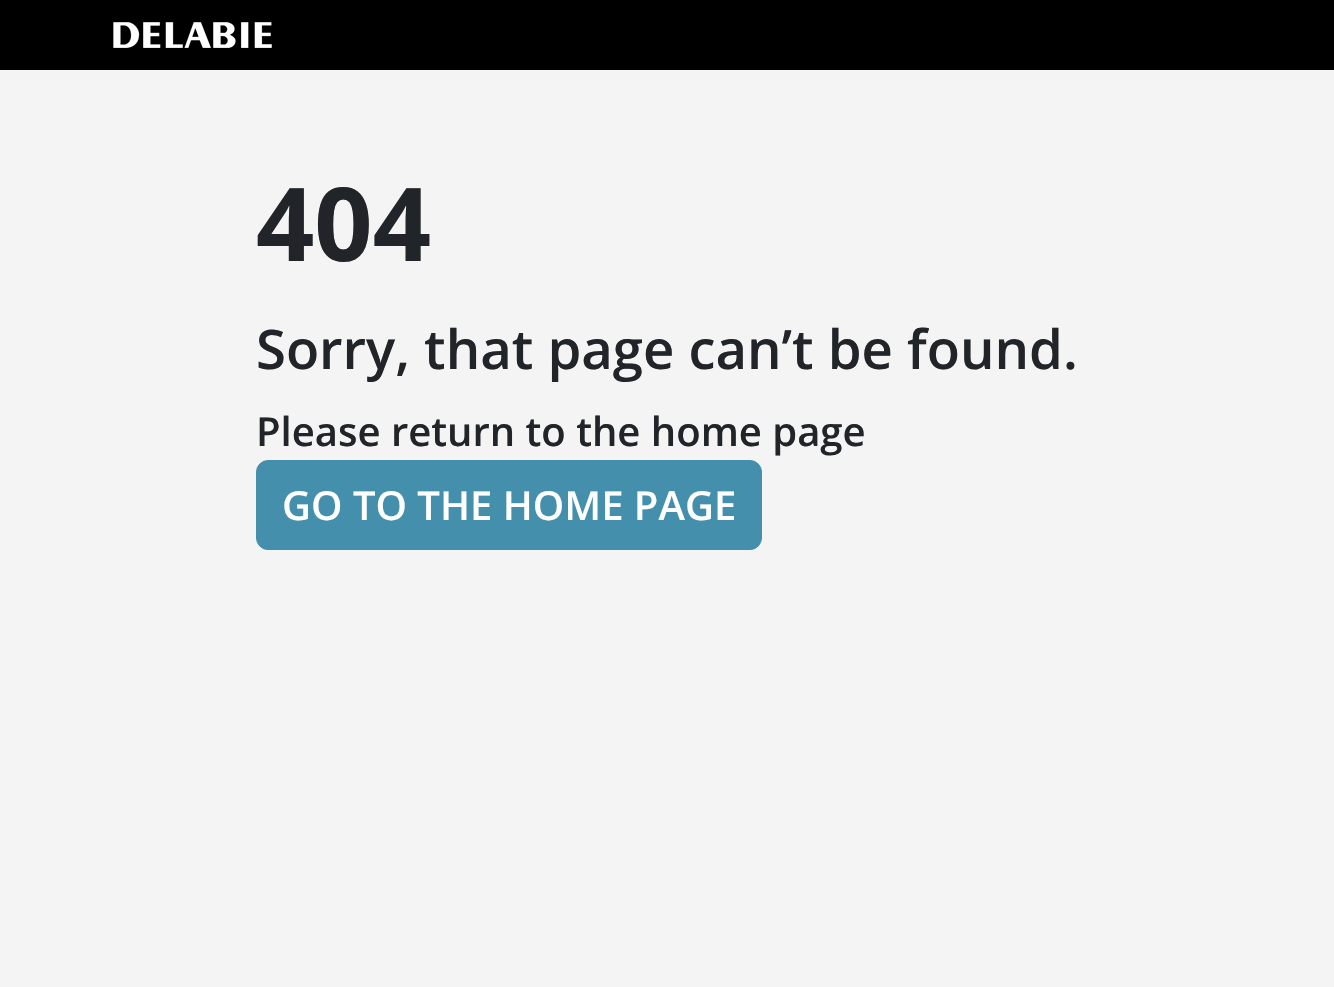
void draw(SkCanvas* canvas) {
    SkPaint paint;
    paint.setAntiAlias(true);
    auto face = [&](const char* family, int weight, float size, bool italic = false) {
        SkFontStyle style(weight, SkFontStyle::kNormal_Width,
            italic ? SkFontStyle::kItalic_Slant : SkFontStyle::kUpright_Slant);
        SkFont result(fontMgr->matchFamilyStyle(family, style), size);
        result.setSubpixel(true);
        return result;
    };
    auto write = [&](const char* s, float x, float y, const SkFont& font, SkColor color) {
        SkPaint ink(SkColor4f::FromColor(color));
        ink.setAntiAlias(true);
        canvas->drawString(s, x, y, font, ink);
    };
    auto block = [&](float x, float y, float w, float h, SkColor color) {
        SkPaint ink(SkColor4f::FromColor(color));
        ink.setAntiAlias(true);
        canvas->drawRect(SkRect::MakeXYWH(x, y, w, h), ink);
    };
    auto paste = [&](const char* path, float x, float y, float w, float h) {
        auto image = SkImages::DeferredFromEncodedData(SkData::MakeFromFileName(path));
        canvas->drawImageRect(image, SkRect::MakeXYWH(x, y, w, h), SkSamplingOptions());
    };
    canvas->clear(SkColorSetRGB(244, 244, 244));
    block(0, 0, 1334, 70, SK_ColorBLACK);
    paste("pic1.png", 113, 22, 159, 26);
    auto kFont1 = face("Open Sans", 700, 102);
    write("404", 256, 261, kFont1, SkColorSetRGB(33, 37, 41));
    auto kFont2 = face("Open Sans", 600, 54.4f);
    write("Sorry, that page can’t be found.", 256, 369, kFont2, SkColorSetRGB(33, 37, 41));
    auto kFont3 = face("Open Sans", 600, 40);
    write("Please return to the home page", 256, 446, kFont3, SkColorSetRGB(33, 37, 41));
    paint.setColor(SkColorSetRGB(67, 143, 172));
    canvas->drawRoundRect(SkRect::MakeXYWH(256.5f, 460.5f, 505, 89), 11.5f, 11.5f, paint);
    paint.setStyle(SkPaint::kStroke_Style);
    paint.setStrokeWidth(1);
    canvas->drawRoundRect(SkRect::MakeXYWH(256.5f, 460.5f, 505, 89), 11.5f, 11.5f, paint);
    write("GO TO THE HOME PAGE", 282, 520, kFont3, SK_ColorWHITE);
}
